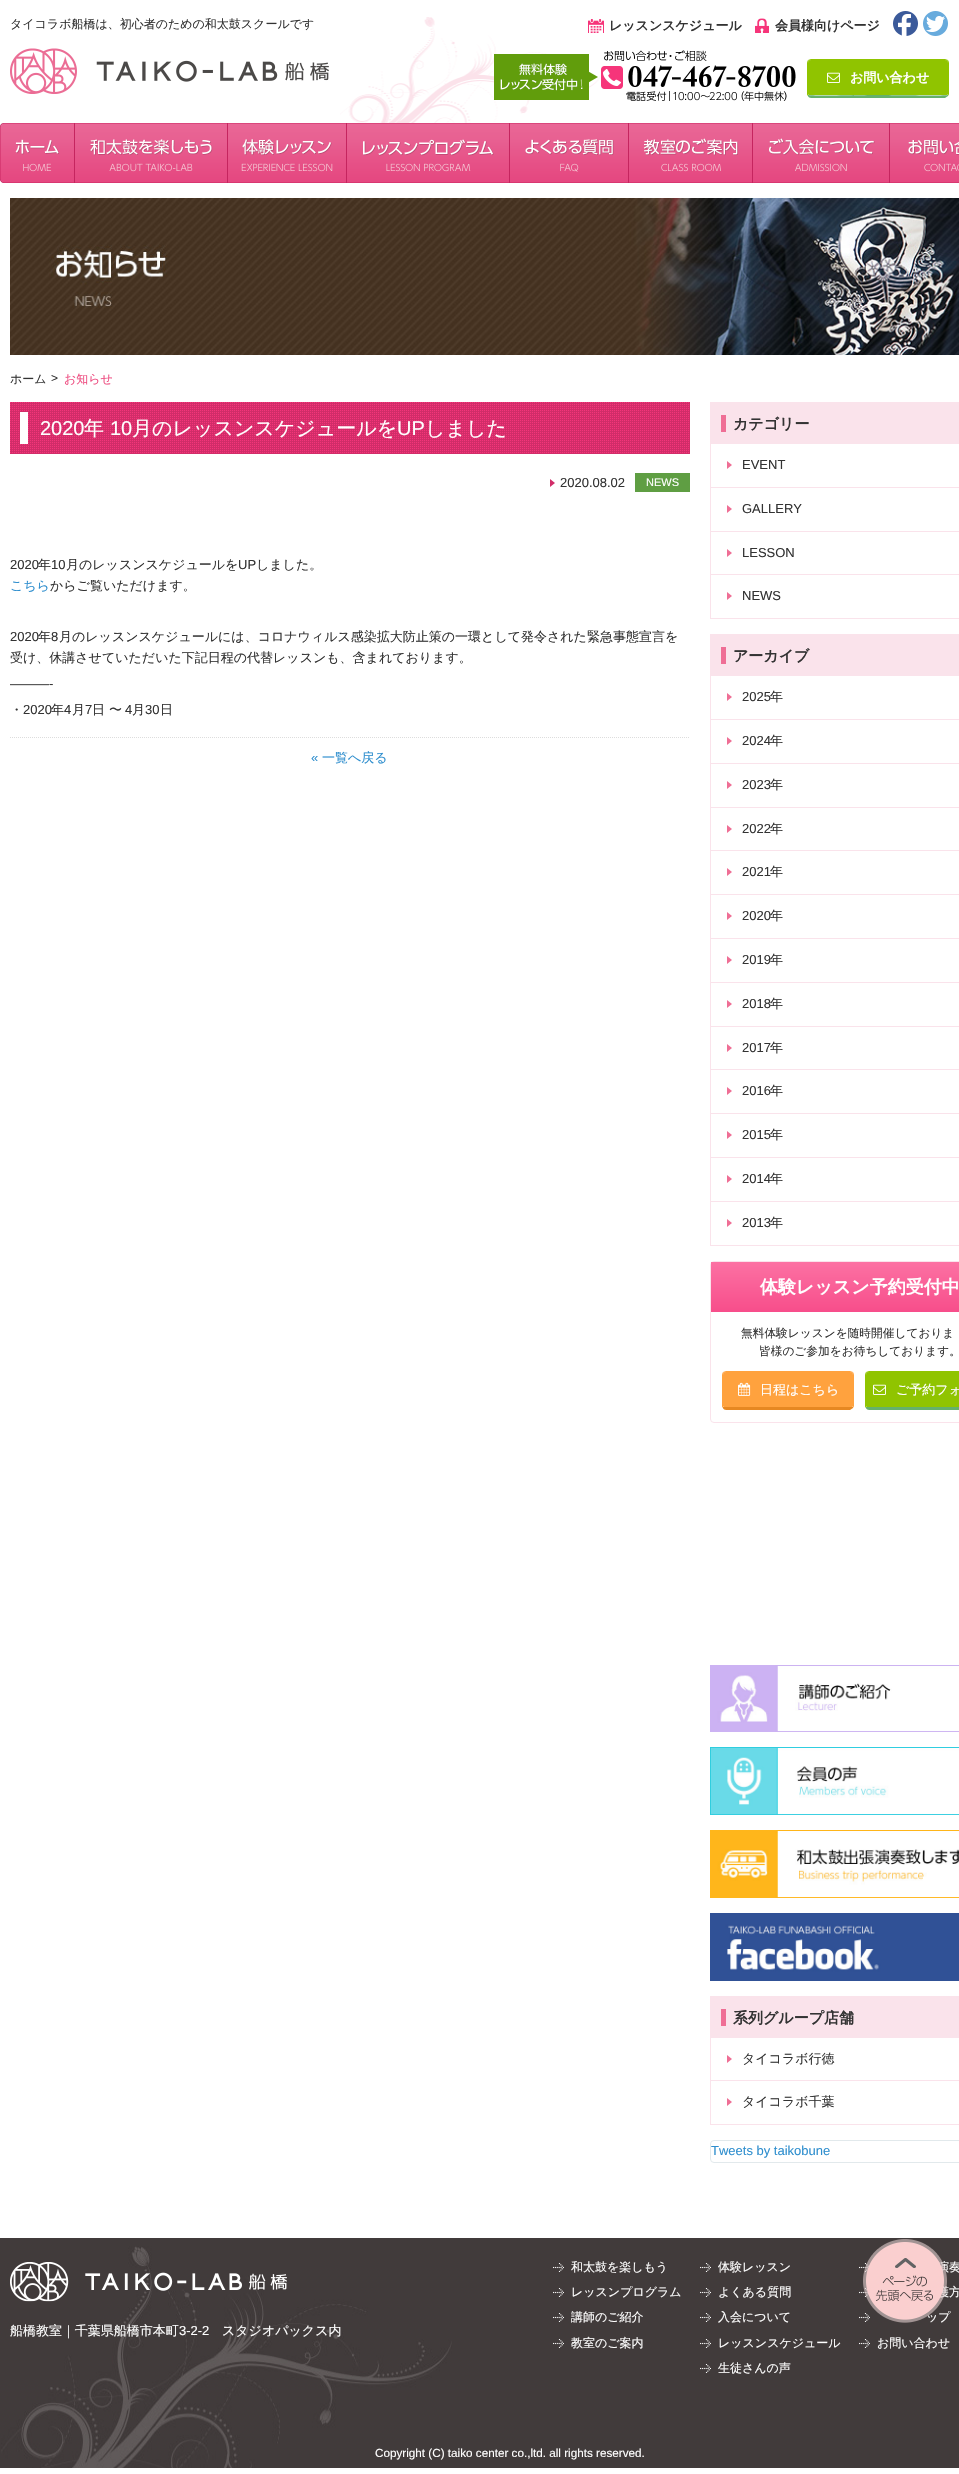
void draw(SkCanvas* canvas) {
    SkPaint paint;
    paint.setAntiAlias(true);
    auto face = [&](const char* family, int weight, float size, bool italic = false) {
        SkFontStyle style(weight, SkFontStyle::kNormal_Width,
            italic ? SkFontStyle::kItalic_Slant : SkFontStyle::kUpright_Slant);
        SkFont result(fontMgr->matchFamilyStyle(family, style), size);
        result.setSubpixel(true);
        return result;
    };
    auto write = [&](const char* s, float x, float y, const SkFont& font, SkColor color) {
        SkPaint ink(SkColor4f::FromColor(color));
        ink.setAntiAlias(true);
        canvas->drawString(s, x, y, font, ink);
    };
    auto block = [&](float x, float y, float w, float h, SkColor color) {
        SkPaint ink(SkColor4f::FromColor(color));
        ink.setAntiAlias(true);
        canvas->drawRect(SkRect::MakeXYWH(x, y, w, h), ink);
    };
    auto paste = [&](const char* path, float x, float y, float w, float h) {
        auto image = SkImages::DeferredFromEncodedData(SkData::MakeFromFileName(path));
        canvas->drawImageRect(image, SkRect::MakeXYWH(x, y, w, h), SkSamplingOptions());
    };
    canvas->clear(SK_ColorWHITE);
    paste("pic1.png", 340, 17, 260, 106);
    auto kFont1 = face("WenQuanYi Zen Hei", 500, 12);
    write("タイコラボ船橋は、初心者のための和太鼓スクールです", 10, 28, kFont1, SkColorSetRGB(51, 51, 51));
    paste("pic2.png", 10, 48, 319, 46);
    paste("pic3.png", 588, 19, 16, 14);
    auto kFont2 = face("WenQuanYi Zen Hei", 700, 13);
    write("レッスンスケジュール", 609, 30, kFont2, SkColorSetRGB(51, 51, 51));
    paste("pic4.png", 755, 18, 14, 15);
    write("会員様向けページ", 775, 30, kFont2, SkColorSetRGB(51, 51, 51));
    paste("pic5.png", 893, 11, 25, 25);
    paste("pic6.png", 923, 11, 25, 25);
    paste("pic7.png", 494, 50, 302, 51);
    paint.setColor(SkColorSetRGB(144, 196, 0));
    canvas->drawPath(SkPathBuilder().moveTo(811, 60).lineTo(945, 60).cubicTo(947, 60, 948, 61, 948, 63).lineTo(948, 94).cubicTo(948, 95, 947, 95, 945, 95).lineTo(811, 95).cubicTo(809, 95, 808, 95, 808, 94).lineTo(808, 63).cubicTo(808, 61, 809, 60, 811, 60).close().detach(), paint);
    canvas->drawPath(SkPathBuilder().moveTo(811, 59).lineTo(808, 60).lineTo(809, 61).lineTo(811, 60).lineTo(945, 60).lineTo(947, 61).lineTo(948, 60).lineTo(945, 59).close().detach(), paint);
    canvas->drawPath(SkPathBuilder().moveTo(949, 94).lineTo(949, 63).cubicTo(949, 62, 948.5f, 61, 948, 60).lineTo(947, 61).lineTo(948, 62.5f).lineTo(948, 94.5f).lineTo(948.5f, 96).close().detach(), paint);
    paint.setColor(SkColorSetRGB(101, 177, 107));
    canvas->drawPath(SkPathBuilder().moveTo(811, 98).lineTo(945, 98).lineTo(948, 96).lineTo(948, 95).cubicTo(947, 96, 885, 95, 878, 95).cubicTo(871, 95, 809, 96, 808, 95).lineTo(808, 96).cubicTo(808, 97, 810, 98, 811, 98).close().detach(), paint);
    paint.setColor(SkColorSetRGB(144, 196, 0));
    canvas->drawPath(SkPathBuilder().moveTo(807, 63).lineTo(807, 94).cubicTo(807, 94.5f, 807, 95.5f, 807.5f, 96).lineTo(808, 94.5f).lineTo(808, 62.5f).lineTo(809, 61).lineTo(808, 60).cubicTo(807.5f, 61, 807, 62, 807, 63).close().detach(), paint);
    paste("pic8.png", 827, 72, 13, 11);
    write("お問い合わせ", 850, 82, kFont2, SK_ColorWHITE);
    paste("pic9.png", 0, 123, 75, 60);
    paste("pic10.png", 75, 123, 153, 60);
    paste("pic11.png", 228, 123, 119, 60);
    paste("pic12.png", 347, 123, 163, 60);
    paste("pic13.png", 510, 123, 119, 60);
    paste("pic14.png", 629, 123, 124, 60);
    paste("pic15.png", 753, 123, 137, 60);
    paste("pic16.png", 890, 123, 69, 60);
    paste("pic17.png", 10, 198, 949, 157);
    write("ホーム", 10, 383, kFont1, SkColorSetRGB(51, 51, 51));
    auto kFont3 = face("Liberation Sans", 400, 12);
    write(">", 51, 382, kFont3, SkColorSetRGB(51, 51, 51));
    write("お知らせ", 64, 383, kFont1, SkColorSetRGB(238, 77, 129));
    paste("pic18.png", 10, 402, 680, 52);
    block(20, 412, 8, 32, SK_ColorWHITE);
    auto kFont4 = face("Liberation Sans", 400, 20);
    write("2020", 40, 435, kFont4, SK_ColorWHITE);
    auto kFont5 = face("WenQuanYi Zen Hei", 500, 20);
    write("年", 84, 435, kFont5, SK_ColorWHITE);
    write("10", 110, 435, kFont4, SK_ColorWHITE);
    write("月のレッスンスケジュールを", 132, 435, kFont5, SK_ColorWHITE);
    write("UP", 397, 435, kFont4, SK_ColorWHITE);
    write("しました", 425, 435, kFont5, SK_ColorWHITE);
    paint.setColor(SkColorSetRGB(209, 45, 105));
    canvas->drawPath(SkPathBuilder().moveTo(550, 487).lineTo(550, 479).lineTo(555, 483).close().detach(), paint);
    auto kFont6 = face("Liberation Sans", 400, 13);
    write("2020.08.02", 560, 487, kFont6, SkColorSetRGB(51, 51, 51));
    block(635, 473, 55, 19, SkColorSetRGB(95, 158, 67));
    auto kFont7 = face("Liberation Sans", 400, 11);
    write("NEWS", 646, 486, kFont7, SK_ColorWHITE);
    write("2020", 10, 569, kFont6, SkColorSetRGB(51, 51, 51));
    auto kFont8 = face("WenQuanYi Zen Hei", 500, 13);
    write("年", 38, 569, kFont8, SkColorSetRGB(51, 51, 51));
    write("10", 51, 569, kFont6, SkColorSetRGB(51, 51, 51));
    write("月のレッスンスケジュールを", 66, 569, kFont8, SkColorSetRGB(51, 51, 51));
    write("UP", 238, 569, kFont6, SkColorSetRGB(51, 51, 51));
    write("しました。", 256, 569, kFont8, SkColorSetRGB(51, 51, 51));
    write("こちら", 10, 590, kFont8, SkColorSetRGB(46, 142, 206));
    write("からご覧いただけます。", 50, 590, kFont8, SkColorSetRGB(51, 51, 51));
    write("2020", 10, 641, kFont6, SkColorSetRGB(51, 51, 51));
    write("年", 38, 641, kFont8, SkColorSetRGB(51, 51, 51));
    write("8", 51, 641, kFont6, SkColorSetRGB(51, 51, 51));
    write("月のレッスンスケジュールには、コロナウィルス感染拡大防止策の一環として発令された緊急事態宣言を", 59, 641, kFont8, SkColorSetRGB(51, 51, 51));
    write("受け、休講させていただいた下記日程の代替レッスンも、含まれております。", 10, 662, kFont8, SkColorSetRGB(51, 51, 51));
    write("———-", 10, 688, kFont6, SkColorSetRGB(51, 51, 51));
    write("・", 10, 714, kFont8, SkColorSetRGB(51, 51, 51));
    write("2020", 23, 714, kFont6, SkColorSetRGB(51, 51, 51));
    write("年", 51, 714, kFont8, SkColorSetRGB(51, 51, 51));
    write("4", 64, 714, kFont6, SkColorSetRGB(51, 51, 51));
    write("月", 72, 714, kFont8, SkColorSetRGB(51, 51, 51));
    write("7", 85, 714, kFont6, SkColorSetRGB(51, 51, 51));
    write("日 〜", 92, 714, kFont8, SkColorSetRGB(51, 51, 51));
    write("4", 125, 714, kFont6, SkColorSetRGB(51, 51, 51));
    write("月", 132, 714, kFont8, SkColorSetRGB(51, 51, 51));
    write("30", 145, 714, kFont6, SkColorSetRGB(51, 51, 51));
    write("日", 160, 714, kFont8, SkColorSetRGB(51, 51, 51));
    paint.setStyle(SkPaint::kStroke_Style);
    paint.setStrokeWidth(1);
    paint.setColor(SkColorSetRGB(221, 221, 221));
    paint.setPathEffect(SkDashPathEffect::Make({{1, 1}}, 0));
    canvas->drawPath(SkPathBuilder().moveTo(10, 737.5f).lineTo(690, 737.5f).detach(), paint);
    paint.setPathEffect(nullptr);
    write("«", 311, 762, kFont6, SkColorSetRGB(46, 142, 206));
    write("一覧へ戻る", 322, 762, kFont8, SkColorSetRGB(46, 142, 206));
    paint.setColor(SkColorSetRGB(250, 227, 235));
    canvas->drawRect(SkRect::MakeXYWH(710.5f, 402.5f, 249, 216), paint);
    block(711, 403, 248, 41, SkColorSetRGB(250, 227, 235));
    auto kFont9 = face("WenQuanYi Zen Hei", 700, 15);
    write("カテゴリー", 733, 429, kFont9, SkColorSetRGB(51, 51, 51));
    block(721, 415, 5, 17, SkColorSetRGB(239, 110, 149));
    block(711, 487, 248, 1, SkColorSetRGB(250, 227, 235));
    paint.setStyle(SkPaint::kFill_Style);
    paint.setColor(SkColorSetRGB(239, 110, 149));
    canvas->drawPath(SkPathBuilder().moveTo(727, 469).lineTo(727, 461).lineTo(732, 465).close().detach(), paint);
    write("EVENT", 742, 469, kFont6, SkColorSetRGB(51, 51, 51));
    block(711, 531, 248, 1, SkColorSetRGB(250, 227, 235));
    canvas->drawPath(SkPathBuilder().moveTo(727, 513).lineTo(727, 505).lineTo(732, 509).close().detach(), paint);
    write("GALLERY", 742, 513, kFont6, SkColorSetRGB(51, 51, 51));
    block(711, 574, 248, 1, SkColorSetRGB(250, 227, 235));
    canvas->drawPath(SkPathBuilder().moveTo(727, 557).lineTo(727, 549).lineTo(732, 553).close().detach(), paint);
    write("LESSON", 742, 557, kFont6, SkColorSetRGB(51, 51, 51));
    canvas->drawPath(SkPathBuilder().moveTo(727, 600).lineTo(727, 592).lineTo(732, 596).close().detach(), paint);
    write("NEWS", 742, 600, kFont6, SkColorSetRGB(51, 51, 51));
    paint.setStyle(SkPaint::kStroke_Style);
    paint.setColor(SkColorSetRGB(250, 227, 235));
    canvas->drawRect(SkRect::MakeXYWH(710.5f, 634.5f, 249, 611), paint);
    block(711, 635, 248, 41, SkColorSetRGB(250, 227, 235));
    write("アーカイブ", 733, 661, kFont9, SkColorSetRGB(51, 51, 51));
    block(721, 647, 5, 17, SkColorSetRGB(239, 110, 149));
    block(711, 719, 248, 1, SkColorSetRGB(250, 227, 235));
    paint.setStyle(SkPaint::kFill_Style);
    paint.setColor(SkColorSetRGB(239, 110, 149));
    canvas->drawPath(SkPathBuilder().moveTo(727, 701).lineTo(727, 693).lineTo(732, 697).close().detach(), paint);
    write("2025", 742, 701, kFont6, SkColorSetRGB(51, 51, 51));
    write("年", 770, 701, kFont8, SkColorSetRGB(51, 51, 51));
    block(711, 763, 248, 1, SkColorSetRGB(250, 227, 235));
    canvas->drawPath(SkPathBuilder().moveTo(727, 745).lineTo(727, 737).lineTo(732, 741).close().detach(), paint);
    write("2024", 742, 745, kFont6, SkColorSetRGB(51, 51, 51));
    write("年", 770, 745, kFont8, SkColorSetRGB(51, 51, 51));
    block(711, 807, 248, 1, SkColorSetRGB(250, 227, 235));
    canvas->drawPath(SkPathBuilder().moveTo(727, 789).lineTo(727, 781).lineTo(732, 785).close().detach(), paint);
    write("2023", 742, 789, kFont6, SkColorSetRGB(51, 51, 51));
    write("年", 770, 789, kFont8, SkColorSetRGB(51, 51, 51));
    block(711, 850, 248, 1, SkColorSetRGB(250, 227, 235));
    canvas->drawPath(SkPathBuilder().moveTo(727, 833).lineTo(727, 825).lineTo(732, 829).close().detach(), paint);
    write("2022", 742, 833, kFont6, SkColorSetRGB(51, 51, 51));
    write("年", 770, 833, kFont8, SkColorSetRGB(51, 51, 51));
    block(711, 894, 248, 1, SkColorSetRGB(250, 227, 235));
    canvas->drawPath(SkPathBuilder().moveTo(727, 876).lineTo(727, 868).lineTo(732, 872).close().detach(), paint);
    write("2021", 742, 876, kFont6, SkColorSetRGB(51, 51, 51));
    write("年", 770, 876, kFont8, SkColorSetRGB(51, 51, 51));
    block(711, 938, 248, 1, SkColorSetRGB(250, 227, 235));
    canvas->drawPath(SkPathBuilder().moveTo(727, 920).lineTo(727, 912).lineTo(732, 916).close().detach(), paint);
    write("2020", 742, 920, kFont6, SkColorSetRGB(51, 51, 51));
    write("年", 770, 920, kFont8, SkColorSetRGB(51, 51, 51));
    block(711, 982, 248, 1, SkColorSetRGB(250, 227, 235));
    canvas->drawPath(SkPathBuilder().moveTo(727, 964).lineTo(727, 956).lineTo(732, 960).close().detach(), paint);
    write("2019", 742, 964, kFont6, SkColorSetRGB(51, 51, 51));
    write("年", 770, 964, kFont8, SkColorSetRGB(51, 51, 51));
    block(711, 1026, 248, 1, SkColorSetRGB(250, 227, 235));
    canvas->drawPath(SkPathBuilder().moveTo(727, 1008).lineTo(727, 1000).lineTo(732, 1004).close().detach(), paint);
    write("2018", 742, 1008, kFont6, SkColorSetRGB(51, 51, 51));
    write("年", 770, 1008, kFont8, SkColorSetRGB(51, 51, 51));
    block(711, 1069, 248, 1, SkColorSetRGB(250, 227, 235));
    canvas->drawPath(SkPathBuilder().moveTo(727, 1052).lineTo(727, 1044).lineTo(732, 1048).close().detach(), paint);
    write("2017", 742, 1052, kFont6, SkColorSetRGB(51, 51, 51));
    write("年", 770, 1052, kFont8, SkColorSetRGB(51, 51, 51));
    block(711, 1113, 248, 1, SkColorSetRGB(250, 227, 235));
    canvas->drawPath(SkPathBuilder().moveTo(727, 1095).lineTo(727, 1087).lineTo(732, 1091).close().detach(), paint);
    write("2016", 742, 1095, kFont6, SkColorSetRGB(51, 51, 51));
    write("年", 770, 1095, kFont8, SkColorSetRGB(51, 51, 51));
    block(711, 1157, 248, 1, SkColorSetRGB(250, 227, 235));
    canvas->drawPath(SkPathBuilder().moveTo(727, 1139).lineTo(727, 1131).lineTo(732, 1135).close().detach(), paint);
    write("2015", 742, 1139, kFont6, SkColorSetRGB(51, 51, 51));
    write("年", 770, 1139, kFont8, SkColorSetRGB(51, 51, 51));
    block(711, 1201, 248, 1, SkColorSetRGB(250, 227, 235));
    canvas->drawPath(SkPathBuilder().moveTo(727, 1183).lineTo(727, 1175).lineTo(732, 1179).close().detach(), paint);
    write("2014", 742, 1183, kFont6, SkColorSetRGB(51, 51, 51));
    write("年", 770, 1183, kFont8, SkColorSetRGB(51, 51, 51));
    canvas->drawPath(SkPathBuilder().moveTo(727, 1227).lineTo(727, 1219).lineTo(732, 1223).close().detach(), paint);
    write("2013", 742, 1227, kFont6, SkColorSetRGB(51, 51, 51));
    write("年", 770, 1227, kFont8, SkColorSetRGB(51, 51, 51));
    paint.setStyle(SkPaint::kStroke_Style);
    paint.setColor(SkColorSetRGB(250, 227, 235));
    canvas->drawRoundRect(SkRect::MakeXYWH(710.5f, 1261.5f, 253, 161), 3.5f, 3.5f, paint);
    paint.setStyle(SkPaint::kFill_Style);
    {
        const SkColor colors[] = {SkColorSetRGB(252, 113, 163), SkColorSetRGB(247, 78, 139)};
        const float stops[] = {0, 0.99f};
        const SkPoint ends[] = {{860, 1262}, {860, 1312}};
        paint.setShader(SkGradientShader::MakeLinear(ends, colors, stops, 2, SkTileMode::kClamp));
        paint.setAlpha(255);
    }
    canvas->drawRect(SkRect::MakeXYWH(711, 1262, 248, 50), paint);
    auto kFont10 = face("WenQuanYi Zen Hei", 700, 18);
    write("体験レッスン予約受付中", 760, 1293, kFont10, SK_ColorWHITE);
    auto kFont11 = face("WenQuanYi Zen Hei", 500, 11.7f);
    write("無料体験レッスンを随時開催しておりま", 741, 1337, kFont11, SkColorSetRGB(51, 51, 51));
    write("皆様のご参加をお待ちしております。", 759, 1355, kFont11, SkColorSetRGB(51, 51, 51));
    paint.setShader(nullptr);
    paint.setColor(SkColorSetRGB(255, 162, 62));
    canvas->drawPath(SkPathBuilder().moveTo(726, 1372).lineTo(850, 1372).cubicTo(852, 1372, 853, 1373, 853, 1375).lineTo(853, 1406).cubicTo(853, 1407, 852, 1407, 850, 1407).lineTo(726, 1407).cubicTo(724, 1407, 723, 1407, 723, 1406).lineTo(723, 1375).cubicTo(723, 1373, 724, 1372, 726, 1372).close().detach(), paint);
    canvas->drawPath(SkPathBuilder().moveTo(726, 1371).lineTo(723, 1372).lineTo(724, 1373).lineTo(726, 1372).lineTo(850, 1372).lineTo(852, 1373).lineTo(853, 1372).lineTo(850, 1371).close().detach(), paint);
    canvas->drawPath(SkPathBuilder().moveTo(854, 1406).lineTo(854, 1375).cubicTo(854, 1374, 853.5f, 1373, 853, 1372).lineTo(852, 1373).lineTo(853, 1374.5f).lineTo(853, 1406.5f).lineTo(853.5f, 1408).close().detach(), paint);
    paint.setColor(SkColorSetRGB(230, 136, 34));
    canvas->drawPath(SkPathBuilder().moveTo(726, 1410).lineTo(850, 1410).lineTo(853, 1408).lineTo(853, 1407).lineTo(852, 1407).lineTo(747, 1407).lineTo(726, 1407).lineTo(723, 1407).lineTo(723, 1408).cubicTo(723, 1409, 725, 1410, 726, 1410).close().detach(), paint);
    paint.setColor(SkColorSetRGB(255, 162, 62));
    canvas->drawPath(SkPathBuilder().moveTo(722, 1375).lineTo(722, 1406).cubicTo(722, 1406.5f, 722, 1407.5f, 722.5f, 1408).lineTo(723, 1406.5f).lineTo(723, 1374.5f).lineTo(724, 1373).lineTo(723, 1372).cubicTo(722.5f, 1373, 722, 1374, 722, 1375).close().detach(), paint);
    paste("pic19.png", 738, 1382, 13, 14);
    write("日程はこちら", 760, 1394, kFont8, SK_ColorWHITE);
    paint.setColor(SkColorSetRGB(144, 196, 0));
    canvas->drawPath(SkPathBuilder().moveTo(869, 1372).lineTo(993, 1372).cubicTo(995, 1372, 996, 1373, 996, 1375).lineTo(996, 1406).cubicTo(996, 1407, 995, 1407, 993, 1407).lineTo(869, 1407).cubicTo(867, 1407, 866, 1407, 866, 1406).lineTo(866, 1375).cubicTo(866, 1373, 867, 1372, 869, 1372).close().detach(), paint);
    canvas->drawPath(SkPathBuilder().moveTo(869, 1371).lineTo(866, 1372).lineTo(867, 1373).lineTo(869, 1372).lineTo(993, 1372).lineTo(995, 1373).lineTo(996, 1372).lineTo(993, 1371).close().detach(), paint);
    paint.setColor(SkColorSetRGB(101, 177, 107));
    canvas->drawPath(SkPathBuilder().moveTo(869, 1410).lineTo(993, 1410).lineTo(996, 1408).lineTo(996, 1407).lineTo(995, 1407).lineTo(890, 1407).lineTo(869, 1407).lineTo(866, 1407).lineTo(866, 1408).cubicTo(866, 1409, 868, 1410, 869, 1410).close().detach(), paint);
    paint.setColor(SkColorSetRGB(144, 196, 0));
    canvas->drawPath(SkPathBuilder().moveTo(865, 1375).lineTo(865, 1406).cubicTo(865, 1406.5f, 865, 1407.5f, 865.5f, 1408).lineTo(866, 1406.5f).lineTo(866, 1374.5f).lineTo(867, 1373).lineTo(866, 1372).cubicTo(865.5f, 1373, 865, 1374, 865, 1375).close().detach(), paint);
    paste("pic8.png", 873, 1384, 13, 11);
    write("ご予約フォ", 896, 1394, kFont8, SK_ColorWHITE);
    paste("pic20.png", 710, 1665, 249, 67);
    paste("pic21.png", 710, 1747, 249, 68);
    paste("pic22.png", 710, 1830, 249, 68);
    paste("pic23.png", 710, 1913, 249, 68);
    paint.setStyle(SkPaint::kStroke_Style);
    paint.setColor(SkColorSetRGB(250, 227, 235));
    canvas->drawRect(SkRect::MakeXYWH(710.5f, 1996.5f, 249, 128), paint);
    block(711, 1997, 248, 41, SkColorSetRGB(250, 227, 235));
    write("系列グループ店舗", 733, 2023, kFont9, SkColorSetRGB(51, 51, 51));
    block(721, 2009, 5, 17, SkColorSetRGB(239, 110, 149));
    block(711, 2080, 248, 1, SkColorSetRGB(250, 227, 235));
    paint.setStyle(SkPaint::kFill_Style);
    paint.setColor(SkColorSetRGB(239, 110, 149));
    canvas->drawPath(SkPathBuilder().moveTo(727, 2063).lineTo(727, 2055).lineTo(732, 2059).close().detach(), paint);
    write("タイコラボ行徳", 742, 2063, kFont8, SkColorSetRGB(51, 51, 51));
    canvas->drawPath(SkPathBuilder().moveTo(727, 2106).lineTo(727, 2098).lineTo(732, 2102).close().detach(), paint);
    write("タイコラボ千葉", 742, 2106, kFont8, SkColorSetRGB(51, 51, 51));
    paint.setStyle(SkPaint::kStroke_Style);
    paint.setColor(SkColorSetRGB(226, 233, 236));
    canvas->drawRoundRect(SkRect::MakeXYWH(710.5f, 2140.5f, 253, 22), 3.5f, 3.5f, paint);
    write("Tweets by taikobune", 711, 2155, kFont6, SkColorSetRGB(46, 142, 206));
    block(0, 2238, 959, 230, SkColorSetRGB(65, 59, 59));
    paste("pic28.png", 859, 2263, 10, 9);
    write("演奏", 937, 2271, kFont1, SK_ColorWHITE);
    paste("pic28.png", 859, 2288, 10, 9);
    write("護方", 937, 2296, kFont1, SK_ColorWHITE);
    paste("pic27.png", 859, 2313, 11, 9);
    write("ップ", 926, 2321, kFont1, SK_ColorWHITE);
    paste("pic24.png", 863, 2239, 84, 84);
    paste("pic25.png", 1, 2246, 451, 222);
    paste("pic26.png", 10, 2262, 277, 40);
    write("船橋教室｜千葉県船橋市本町", 10, 2335, kFont8, SK_ColorWHITE);
    write("3-2-2", 179, 2335, kFont6, SK_ColorWHITE);
    write("スタジオパックス内", 222, 2335, kFont8, SK_ColorWHITE);
    paste("pic27.png", 553, 2263, 11, 9);
    write("和太鼓を楽しもう", 571, 2271, kFont1, SK_ColorWHITE);
    paste("pic27.png", 553, 2288, 11, 9);
    write("レッスンプログラム", 571, 2296, kFont1, SK_ColorWHITE);
    paste("pic27.png", 553, 2313, 11, 9);
    write("講師のご紹介", 571, 2321, kFont1, SK_ColorWHITE);
    paste("pic27.png", 553, 2339, 11, 9);
    write("教室のご案内", 571, 2347, kFont1, SK_ColorWHITE);
    paste("pic27.png", 700, 2263, 11, 9);
    write("体験レッスン", 718, 2271, kFont1, SK_ColorWHITE);
    paste("pic27.png", 700, 2288, 11, 9);
    write("よくある質問", 718, 2296, kFont1, SK_ColorWHITE);
    paste("pic27.png", 700, 2313, 11, 9);
    write("入会について", 718, 2321, kFont1, SK_ColorWHITE);
    paste("pic27.png", 700, 2339, 11, 9);
    write("レッスンスケジュール", 718, 2347, kFont1, SK_ColorWHITE);
    paste("pic27.png", 700, 2364, 11, 9);
    write("生徒さんの声", 718, 2372, kFont1, SK_ColorWHITE);
    paste("pic27.png", 859, 2339, 11, 9);
    write("お問い合わせ", 877, 2347, kFont1, SK_ColorWHITE);
    auto kFont12 = face("Liberation Sans", 400, 11.7f);
    write("Copyright (C) taiko center co.,ltd. all rights reserved.", 375, 2457, kFont12, SK_ColorWHITE);
}
